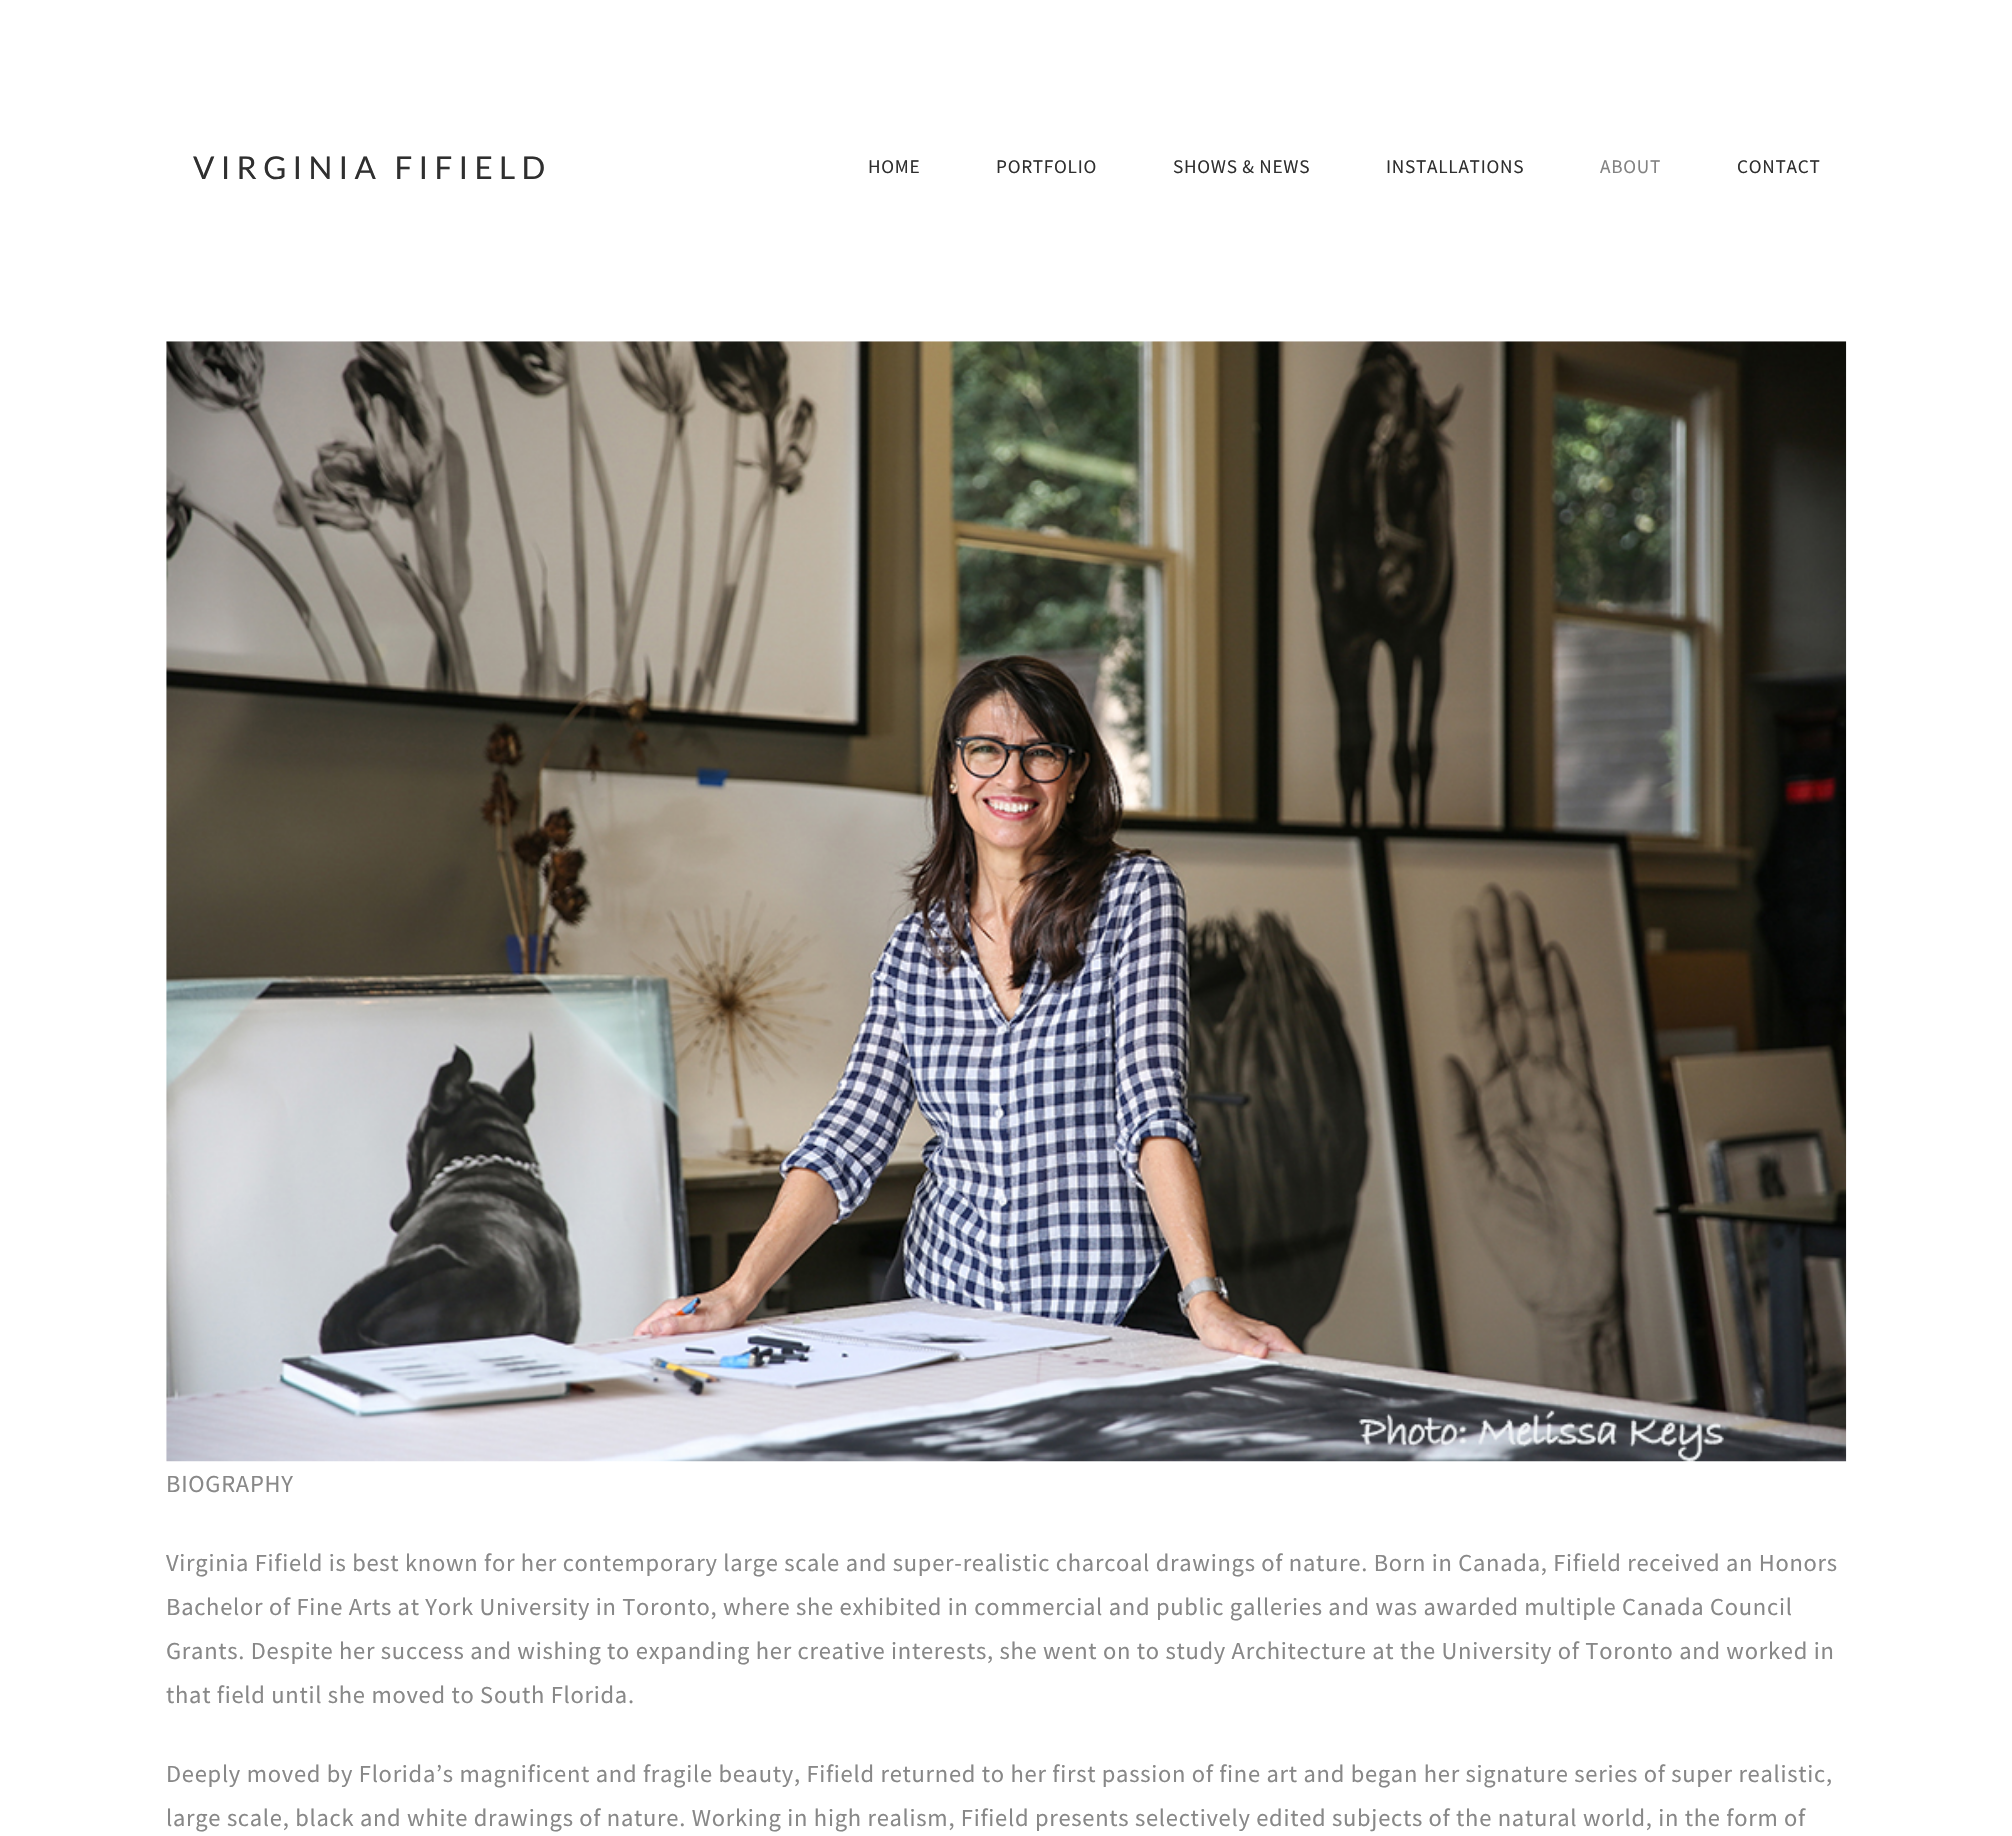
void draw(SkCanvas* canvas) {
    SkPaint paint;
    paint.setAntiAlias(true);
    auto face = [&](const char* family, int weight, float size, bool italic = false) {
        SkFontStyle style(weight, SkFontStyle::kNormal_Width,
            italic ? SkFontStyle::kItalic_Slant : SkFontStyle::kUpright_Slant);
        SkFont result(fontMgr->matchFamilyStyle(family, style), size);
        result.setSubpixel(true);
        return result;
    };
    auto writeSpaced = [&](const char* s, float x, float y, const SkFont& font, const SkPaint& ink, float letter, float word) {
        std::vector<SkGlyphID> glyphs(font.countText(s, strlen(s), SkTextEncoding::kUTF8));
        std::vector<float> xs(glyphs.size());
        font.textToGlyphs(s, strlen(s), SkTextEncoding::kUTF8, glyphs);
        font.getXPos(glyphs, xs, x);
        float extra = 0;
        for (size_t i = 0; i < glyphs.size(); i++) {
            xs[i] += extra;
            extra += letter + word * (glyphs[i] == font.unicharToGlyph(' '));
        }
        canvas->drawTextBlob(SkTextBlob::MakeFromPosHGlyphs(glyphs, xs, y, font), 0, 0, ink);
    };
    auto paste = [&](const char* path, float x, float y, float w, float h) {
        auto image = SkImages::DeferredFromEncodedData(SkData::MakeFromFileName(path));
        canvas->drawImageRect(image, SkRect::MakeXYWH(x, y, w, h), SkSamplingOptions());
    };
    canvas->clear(SK_ColorWHITE);
    auto kFont1 = face("Lato", 400, 31.5f);
    paint.setColor(SkColorSetRGB(47, 47, 47));
    writeSpaced("VIRGINIA FIFIELD", 193, 179, kFont1, paint, 6.25f, 0);
    auto kFont2 = face("Source Sans Pro", 400, 19.25f);
    writeSpaced("HOME", 868, 173, kFont2, paint, 0.73f, 0);
    writeSpaced("PORTFOLIO", 996, 173, kFont2, paint, 0.73f, 0);
    writeSpaced("SHOWS & NEWS", 1173, 173, kFont2, paint, 0.73f, 0);
    writeSpaced("INSTALLATIONS", 1386, 173, kFont2, paint, 0.73f, 0);
    paint.setColor(SkColorSetRGB(130, 130, 130));
    writeSpaced("ABOUT", 1600, 173, kFont2, paint, 0.73f, 0);
    paint.setColor(SkColorSetRGB(47, 47, 47));
    writeSpaced("CONTACT", 1737, 173, kFont2, paint, 0.73f, 0);
    paste("pic1.png", 166, 341, 1681, 1121);
    auto kFont3 = face("Source Sans Pro", 400, 24.5f);
    paint.setColor(SkColorSetRGB(136, 136, 136));
    writeSpaced("BIOGRAPHY", 166, 1492, kFont3, paint, 0.73f, 0);
    writeSpaced("Virginia Fifield is best known for her contemporary large scale and super-realistic charcoal drawings of nature. Born in Canada, Fifield received an Honors", 166, 1571, kFont3, paint, 0.73f, 0);
    writeSpaced("Bachelor of Fine Arts at York University in Toronto, where she exhibited in commercial and public galleries and was awarded multiple Canada Council", 166, 1615, kFont3, paint, 0.73f, 0);
    writeSpaced("Grants. Despite her success and wishing to expanding her creative interests, she went on to study Architecture at the University of Toronto and worked in", 166, 1659, kFont3, paint, 0.73f, 0);
    writeSpaced("that field until she moved to South Florida.", 166, 1703, kFont3, paint, 0.73f, 0);
    writeSpaced("Deeply moved by Florida’s magnificent and fragile beauty, Fifield returned to her first passion of fine art and began her signature series of super realistic,", 166, 1782, kFont3, paint, 0.73f, 0);
    writeSpaced("large scale, black and white drawings of nature. Working in high realism, Fifield presents selectively edited subjects of the natural world, in the form of", 166, 1826, kFont3, paint, 0.73f, 0);
}
